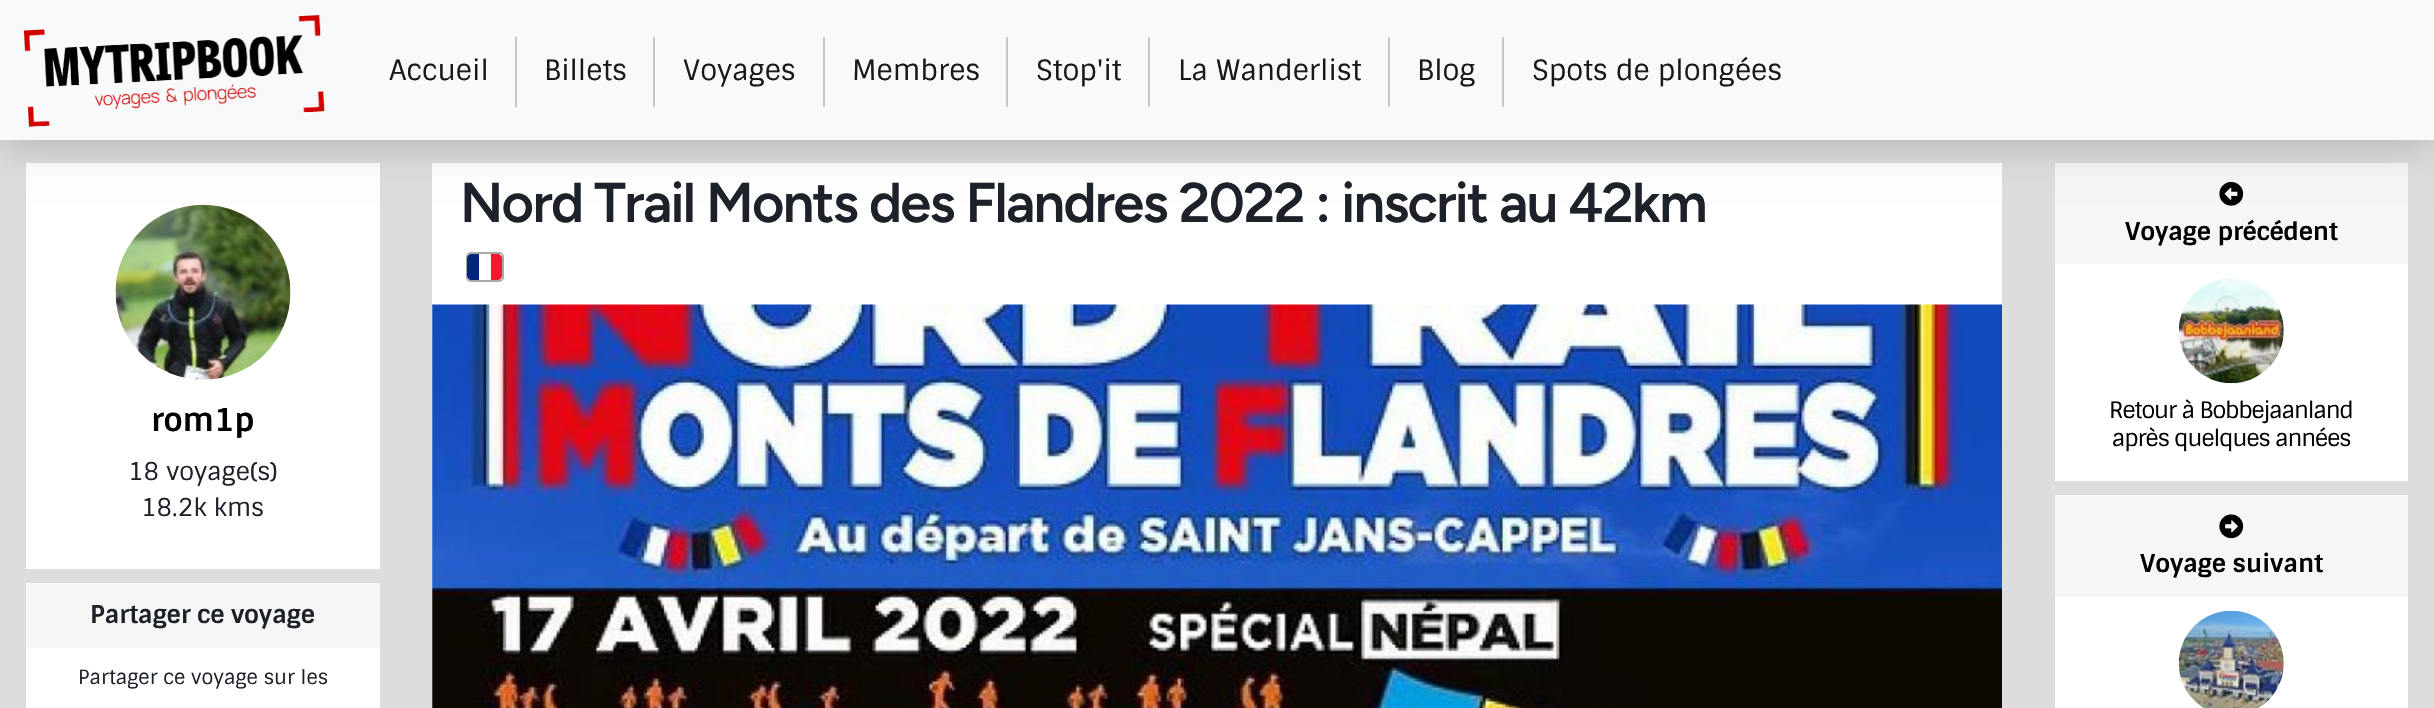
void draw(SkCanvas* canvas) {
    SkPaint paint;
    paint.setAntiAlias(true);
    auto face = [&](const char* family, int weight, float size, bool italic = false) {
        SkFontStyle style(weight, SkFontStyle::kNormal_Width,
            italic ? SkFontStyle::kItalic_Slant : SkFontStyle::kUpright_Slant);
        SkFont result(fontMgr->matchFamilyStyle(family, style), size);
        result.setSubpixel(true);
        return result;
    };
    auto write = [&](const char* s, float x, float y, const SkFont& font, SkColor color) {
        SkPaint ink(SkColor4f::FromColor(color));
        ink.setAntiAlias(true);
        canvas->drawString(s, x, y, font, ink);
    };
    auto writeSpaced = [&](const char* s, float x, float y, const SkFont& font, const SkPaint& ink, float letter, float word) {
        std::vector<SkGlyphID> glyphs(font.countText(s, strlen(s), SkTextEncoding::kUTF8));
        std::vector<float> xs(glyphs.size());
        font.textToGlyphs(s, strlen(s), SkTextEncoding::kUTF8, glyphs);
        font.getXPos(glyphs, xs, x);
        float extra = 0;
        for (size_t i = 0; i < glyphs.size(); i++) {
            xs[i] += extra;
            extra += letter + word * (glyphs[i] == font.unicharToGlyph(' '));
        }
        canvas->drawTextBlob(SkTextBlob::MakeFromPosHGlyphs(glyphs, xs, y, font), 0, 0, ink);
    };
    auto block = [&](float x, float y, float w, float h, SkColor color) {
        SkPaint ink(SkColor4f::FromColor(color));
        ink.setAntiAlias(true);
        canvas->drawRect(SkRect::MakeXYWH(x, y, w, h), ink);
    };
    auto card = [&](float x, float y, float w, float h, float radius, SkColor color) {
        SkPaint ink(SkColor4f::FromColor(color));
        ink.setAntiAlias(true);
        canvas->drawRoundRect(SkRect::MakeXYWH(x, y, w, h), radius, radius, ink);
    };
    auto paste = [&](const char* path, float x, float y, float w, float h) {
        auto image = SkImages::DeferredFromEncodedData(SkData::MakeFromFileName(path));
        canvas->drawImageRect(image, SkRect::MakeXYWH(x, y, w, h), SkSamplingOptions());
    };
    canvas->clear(SkColorSetRGB(221, 221, 221));
    block(432, 163, 1570, 545, SK_ColorWHITE);
    block(26, 163, 354, 406, SK_ColorWHITE);
    paste("pic3.png", 115, 204, 176, 176);
    block(2055, 163, 353, 101, SkColorSetRGB(246, 246, 246));
    paste("pic4.png", 2219, 181, 25, 25);
    paint.setColor(SkColorSetARGB(51, 0, 0, 0));
    paint.setMaskFilter(SkMaskFilter::MakeBlur(kNormal_SkBlurStyle, 20));
    canvas->drawRect(SkRect::MakeXYWH(0, 5, 2434, 140), paint);
    paint.setMaskFilter(nullptr);
    block(0, 0, 2434, 140, SkColorSetRGB(248, 249, 250));
    paste("pic1.png", 23, 15, 302, 112);
    auto kFont1 = face("Sintony", 400, 28);
    write("Accueil", 389, 80, kFont1, SkColorSetRGB(25, 25, 25));
    block(515, 37, 2, 70, SkColorSetRGB(198, 198, 198));
    write("Billets", 544, 80, kFont1, SkColorSetRGB(25, 25, 25));
    block(653, 37, 2, 70, SkColorSetRGB(198, 198, 198));
    write("Voyages", 683, 80, kFont1, SkColorSetRGB(25, 25, 25));
    block(823, 37, 2, 70, SkColorSetRGB(198, 198, 198));
    write("Membres", 852, 80, kFont1, SkColorSetRGB(25, 25, 25));
    block(1006, 37, 2, 70, SkColorSetRGB(198, 198, 198));
    write("Stop'it", 1036, 80, kFont1, SkColorSetRGB(25, 25, 25));
    block(1148, 37, 2, 70, SkColorSetRGB(198, 198, 198));
    write("La Wanderlist", 1178, 80, kFont1, SkColorSetRGB(25, 25, 25));
    block(1388, 37, 2, 70, SkColorSetRGB(198, 198, 198));
    write("Blog", 1417, 80, kFont1, SkColorSetRGB(25, 25, 25));
    block(1502, 37, 2, 70, SkColorSetRGB(198, 198, 198));
    write("Spots de plongées", 1532, 80, kFont1, SkColorSetRGB(25, 25, 25));
    auto kFont2 = face("Figtree", 600, 56);
    paint.setColor(SkColorSetRGB(29, 33, 41));
    writeSpaced("Nord Trail Monts des Flandres 2022 : inscrit au 42km", 460, 222, kFont2, paint, -1.75f, 0);
    paint.setStyle(SkPaint::kStroke_Style);
    paint.setStrokeWidth(2);
    paint.setColor(SkColorSetRGB(170, 170, 170));
    canvas->drawRoundRect(SkRect::MakeXYWH(467, 253, 36, 28), 4, 4, paint);
    card(467, 254, 35, 26, 4, SK_ColorWHITE);
    paint.setStyle(SkPaint::kFill_Style);
    paint.setColor(SkColorSetRGB(0, 38, 127));
    canvas->drawPath(SkPathBuilder().moveTo(471, 254).lineTo(479, 254).lineTo(479, 280).lineTo(471, 280).cubicTo(469, 280, 467, 278, 467, 276).lineTo(467, 258).cubicTo(467, 256, 469, 254, 471, 254).close().detach(), paint);
    paint.setColor(SkColorSetRGB(243, 24, 48));
    canvas->drawPath(SkPathBuilder().moveTo(491, 254).lineTo(498, 254).cubicTo(500, 254, 502, 256, 502, 258).lineTo(502, 276).cubicTo(502, 278, 500, 280, 498, 280).lineTo(491, 280).close().detach(), paint);
    paste("pic2.png", 432, 304, 1570, 404);
    auto kFont3 = face("Sintony", 700, 31.5f);
    write("rom1p", 151, 431, kFont3, SK_ColorBLACK);
    auto kFont4 = face("Sintony", 400, 24.5f);
    write("18 voyage(s)", 128, 480, kFont4, SkColorSetRGB(29, 33, 41));
    write("18.2k kms", 141, 516, kFont4, SkColorSetRGB(29, 33, 41));
    block(26, 648, 354, 60, SK_ColorWHITE);
    block(26, 583, 354, 65, SkColorSetRGB(246, 246, 246));
    auto kFont5 = face("Sintony", 700, 24.5f);
    write("Partager ce voyage", 90, 623, kFont5, SkColorSetRGB(29, 33, 41));
    auto kFont6 = face("Sintony", 400, 19.6f);
    write("Partager ce voyage sur les", 78, 684, kFont6, SkColorSetRGB(29, 33, 41));
    block(2055, 264, 353, 217, SK_ColorWHITE);
    write("Voyage précédent", 2125, 240, kFont5, SK_ColorBLACK);
    paste("pic5.png", 2178, 278, 106, 106);
    auto kFont7 = face("Sintony", 400, 22.75f);
    paint.setColor(SK_ColorBLACK);
    writeSpaced("Retour à Bobbejaanland", 2109, 418, kFont7, paint, -1.05f, 0);
    writeSpaced("après quelques années", 2112, 446, kFont7, paint, -1.05f, 0);
    block(2055, 597, 353, 111, SK_ColorWHITE);
    block(2055, 495, 353, 102, SkColorSetRGB(246, 246, 246));
    paste("pic6.png", 2219, 514, 25, 25);
    write("Voyage suivant", 2140, 572, kFont5, SK_ColorBLACK);
    paste("pic7.png", 2178, 610, 106, 98);
}
